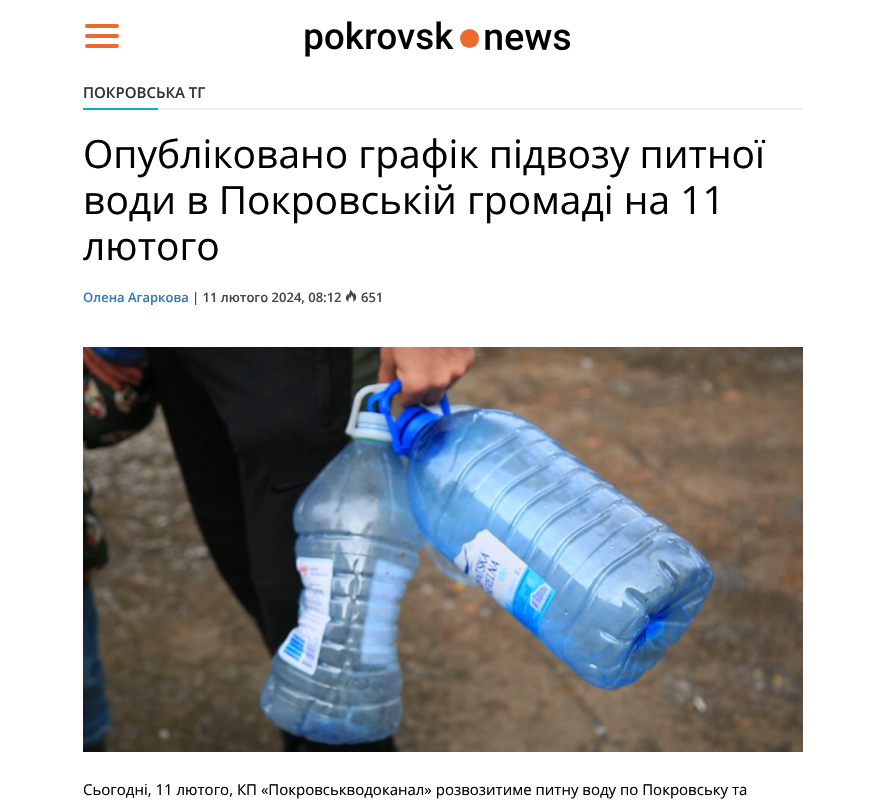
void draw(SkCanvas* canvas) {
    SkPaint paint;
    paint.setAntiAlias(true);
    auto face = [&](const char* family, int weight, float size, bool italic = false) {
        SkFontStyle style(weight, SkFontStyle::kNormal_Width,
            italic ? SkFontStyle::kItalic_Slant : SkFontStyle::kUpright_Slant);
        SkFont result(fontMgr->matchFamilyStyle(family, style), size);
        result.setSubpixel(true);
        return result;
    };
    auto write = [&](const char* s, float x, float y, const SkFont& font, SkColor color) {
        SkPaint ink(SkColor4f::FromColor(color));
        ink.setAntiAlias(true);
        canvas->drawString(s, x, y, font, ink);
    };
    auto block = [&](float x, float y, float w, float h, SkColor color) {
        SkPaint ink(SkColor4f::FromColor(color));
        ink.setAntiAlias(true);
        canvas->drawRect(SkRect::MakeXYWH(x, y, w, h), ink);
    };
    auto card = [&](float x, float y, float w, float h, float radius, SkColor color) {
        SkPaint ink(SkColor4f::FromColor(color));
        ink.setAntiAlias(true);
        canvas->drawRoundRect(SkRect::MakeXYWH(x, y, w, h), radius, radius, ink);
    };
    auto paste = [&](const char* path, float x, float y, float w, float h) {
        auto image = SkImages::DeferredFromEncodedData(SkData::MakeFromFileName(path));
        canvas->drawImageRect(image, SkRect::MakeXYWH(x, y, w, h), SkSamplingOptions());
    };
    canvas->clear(SK_ColorWHITE);
    card(85, 24, 34, 4, 2, SkColorSetRGB(235, 106, 46));
    card(85, 34, 34, 4, 2, SkColorSetRGB(235, 106, 46));
    card(85, 44, 34, 4, 2, SkColorSetRGB(235, 106, 46));
    paste("pic1.png", 305, 21, 149, 36);
    paint.setColor(SkColorSetRGB(235, 106, 46));
    canvas->drawCircle(469.5f, 38.5f, 9.5f, paint);
    paste("pic2.png", 485, 29, 86, 22);
    block(158, 108, 645, 2, SkColorSetRGB(238, 238, 238));
    auto kFont1 = face("Open Sans", 600, 15);
    write("ПОКРОВСЬКА ТГ", 83, 98, kFont1, SkColorSetRGB(51, 51, 51));
    block(83, 108, 75, 2, SkColorSetRGB(0, 178, 219));
    auto kFont2 = face("Open Sans", 400, 39);
    write("Опубліковано графік підвозу питної", 83, 168, kFont2, SK_ColorBLACK);
    write("води в Покровській громаді на 11", 83, 214, kFont2, SK_ColorBLACK);
    write("лютого", 83, 260, kFont2, SK_ColorBLACK);
    auto kFont3 = face("Open Sans", 600, 13);
    write("Олена Агаркова", 83, 302, kFont3, SkColorSetRGB(51, 122, 183));
    write("| 11 лютого 2024, 08:12", 192, 302, kFont3, SkColorSetRGB(69, 69, 69));
    paste("pic3.png", 345, 290, 12, 12);
    write("651", 361, 302, kFont3, SkColorSetRGB(69, 69, 69));
    paste("pic4.png", 83, 347, 720, 405);
    auto kFont4 = face("Open Sans", 400, 15);
    write("Сьогодні, 11 лютого, КП «Покровськводоканал» розвозитиме питну воду по Покровську та", 83, 795, kFont4, SK_ColorBLACK);
}
